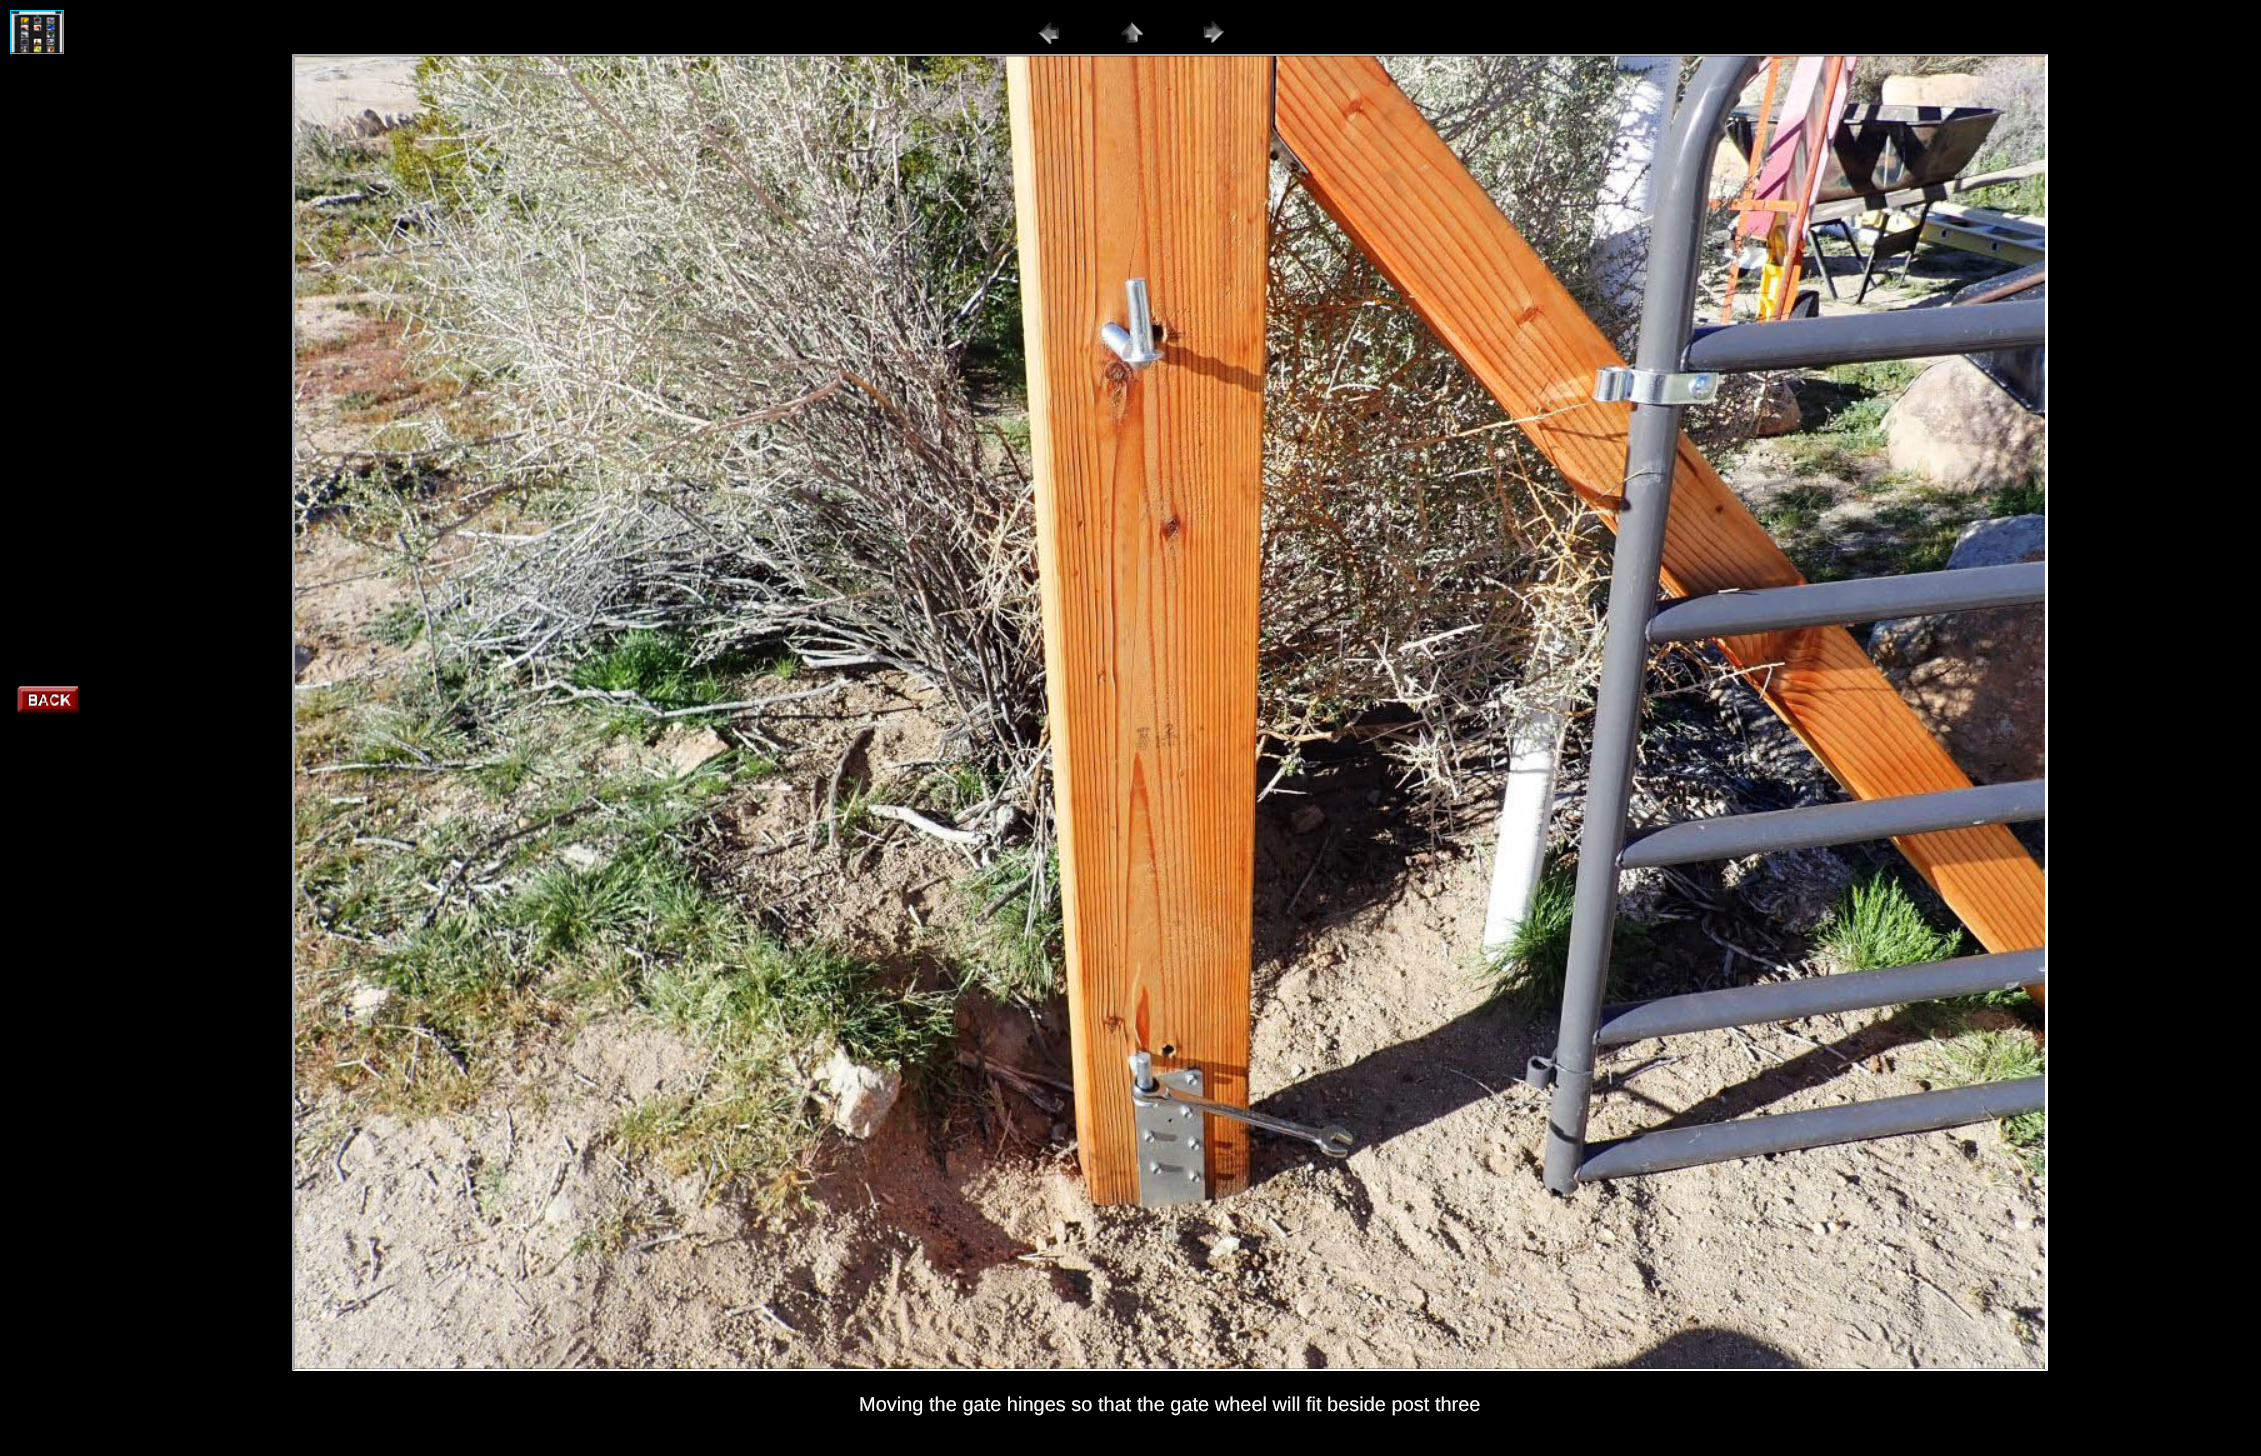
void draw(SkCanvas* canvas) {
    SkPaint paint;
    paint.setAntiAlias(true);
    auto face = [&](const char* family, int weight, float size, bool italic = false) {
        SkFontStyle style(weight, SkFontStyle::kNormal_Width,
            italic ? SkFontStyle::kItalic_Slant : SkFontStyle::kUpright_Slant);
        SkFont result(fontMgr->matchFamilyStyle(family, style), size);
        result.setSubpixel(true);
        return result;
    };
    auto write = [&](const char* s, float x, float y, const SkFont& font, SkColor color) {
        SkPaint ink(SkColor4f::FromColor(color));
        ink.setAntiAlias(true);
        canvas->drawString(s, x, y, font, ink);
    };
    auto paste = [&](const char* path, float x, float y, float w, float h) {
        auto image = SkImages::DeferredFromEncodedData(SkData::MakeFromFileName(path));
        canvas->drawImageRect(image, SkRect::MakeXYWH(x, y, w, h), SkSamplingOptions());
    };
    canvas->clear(SK_ColorBLACK);
    paint.setStyle(SkPaint::kStroke_Style);
    paint.setStrokeWidth(1);
    paint.setColor(SkColorSetRGB(0, 204, 255));
    canvas->drawRect(SkRect::MakeXYWH(10.5f, 10.5f, 53, 43), paint);
    paste("pic1.png", 11, 11, 52, 42);
    paste("pic2.png", 1038, 22, 21, 22);
    paste("pic3.png", 1121, 22, 22, 21);
    paste("pic4.png", 1203, 21, 21, 22);
    paste("pic5.png", 17, 686, 63, 28);
    paint.setStyle(SkPaint::kFill_Style);
    paint.setColor(SkColorSetRGB(170, 170, 170));
    canvas->drawPath(SkPathBuilder().moveTo(292, 54).lineTo(2048, 54).lineTo(2045, 56).lineTo(295, 56).close().detach(), paint);
    paint.setColor(SK_ColorWHITE);
    canvas->drawPath(SkPathBuilder().moveTo(2048, 54).lineTo(2048, 1371).lineTo(2045, 1369).lineTo(2045, 56).close().detach(), paint);
    canvas->drawPath(SkPathBuilder().moveTo(2048, 1371).lineTo(292, 1371).lineTo(295, 1369).lineTo(2045, 1369).close().detach(), paint);
    paint.setColor(SkColorSetRGB(170, 170, 170));
    canvas->drawPath(SkPathBuilder().moveTo(292, 1371).lineTo(292, 54).lineTo(295, 56).lineTo(295, 1369).close().detach(), paint);
    paste("pic6.png", 295, 56, 1750, 1313);
    auto kFont1 = face("Liberation Sans", 400, 20);
    write("Moving the gate hinges so that the gate wheel will fit beside post three", 859, 1411, kFont1, SK_ColorWHITE);
}
